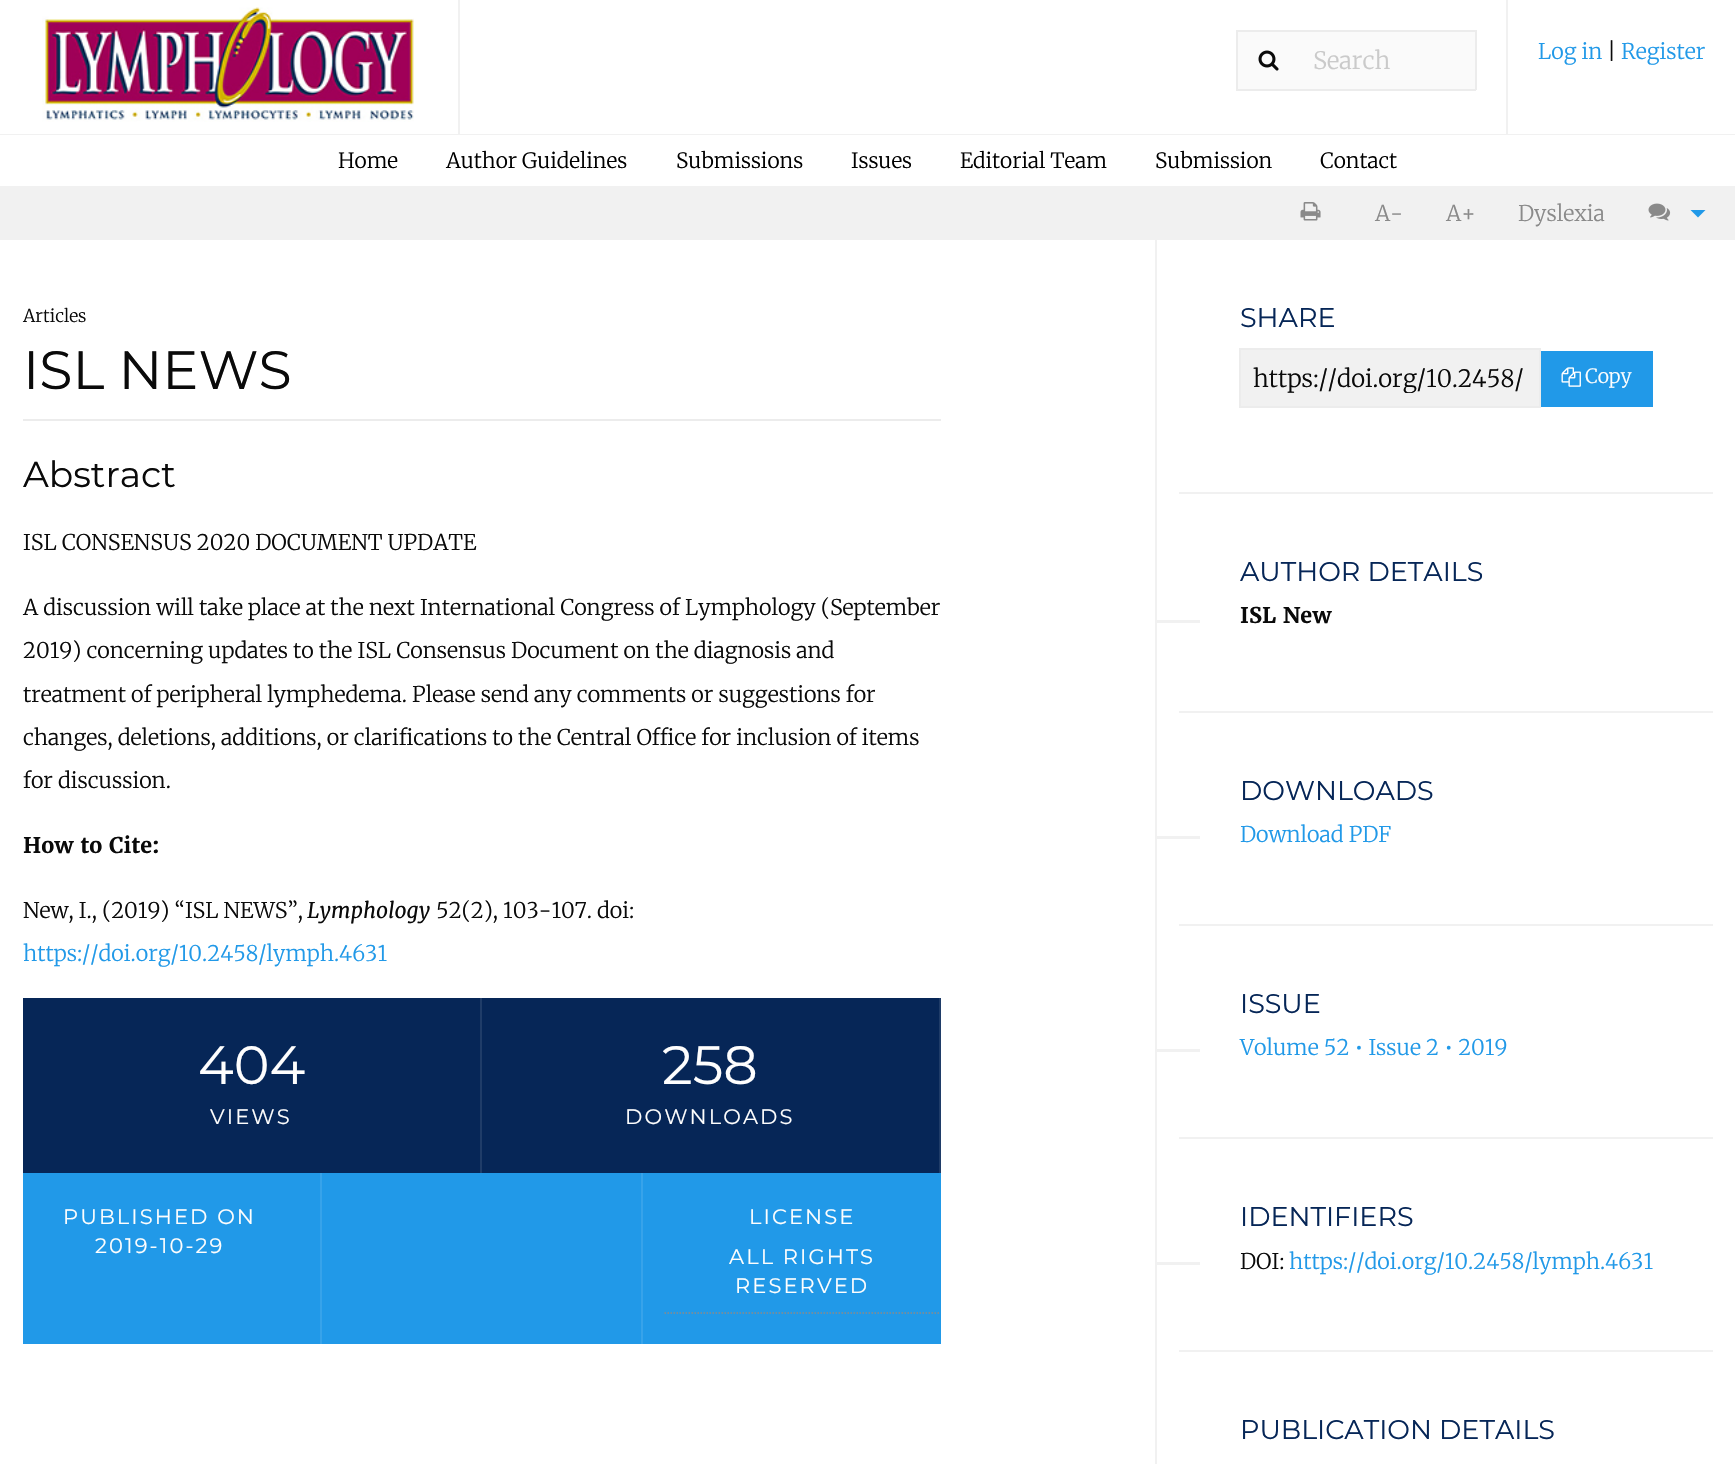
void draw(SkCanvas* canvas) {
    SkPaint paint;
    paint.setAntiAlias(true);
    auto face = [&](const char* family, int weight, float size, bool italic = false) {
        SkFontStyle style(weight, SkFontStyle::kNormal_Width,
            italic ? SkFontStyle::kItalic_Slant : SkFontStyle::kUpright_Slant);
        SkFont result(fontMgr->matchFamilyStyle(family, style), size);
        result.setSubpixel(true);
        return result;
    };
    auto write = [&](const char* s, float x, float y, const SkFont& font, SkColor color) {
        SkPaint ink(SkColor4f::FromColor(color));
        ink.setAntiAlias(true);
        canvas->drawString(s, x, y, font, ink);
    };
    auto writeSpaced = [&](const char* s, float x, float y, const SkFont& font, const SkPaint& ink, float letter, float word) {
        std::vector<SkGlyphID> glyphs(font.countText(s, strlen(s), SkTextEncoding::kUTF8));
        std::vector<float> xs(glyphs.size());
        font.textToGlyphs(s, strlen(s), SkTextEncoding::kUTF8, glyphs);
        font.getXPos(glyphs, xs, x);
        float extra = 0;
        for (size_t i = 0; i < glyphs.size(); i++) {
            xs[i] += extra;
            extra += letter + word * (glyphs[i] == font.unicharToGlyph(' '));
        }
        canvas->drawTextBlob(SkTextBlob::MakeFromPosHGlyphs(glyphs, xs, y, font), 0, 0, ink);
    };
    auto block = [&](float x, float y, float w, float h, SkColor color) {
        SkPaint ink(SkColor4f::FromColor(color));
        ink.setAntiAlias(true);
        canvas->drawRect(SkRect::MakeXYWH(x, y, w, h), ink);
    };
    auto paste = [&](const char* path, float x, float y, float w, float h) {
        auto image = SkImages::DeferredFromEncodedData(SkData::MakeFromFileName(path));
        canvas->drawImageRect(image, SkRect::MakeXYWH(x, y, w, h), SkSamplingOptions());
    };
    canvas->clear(SK_ColorWHITE);
    block(0, 134, 1735, 1, SkColorSetRGB(241, 241, 241));
    block(458, 0, 2, 134, SkColorSetRGB(241, 241, 241));
    paste("pic1.png", 42, 7, 372, 115);
    block(1238, 32, 237, 57, SkColorSetRGB(250, 250, 250));
    block(1236, 30, 240, 2, SkColorSetRGB(236, 236, 236));
    block(1236, 89, 65, 2, SkColorSetRGB(236, 236, 236));
    block(1236, 30, 2, 60, SkColorSetRGB(236, 236, 236));
    paste("pic2.png", 1258, 50, 21, 21);
    block(1475, 30, 2, 60, SkColorSetRGB(236, 236, 236));
    block(1301, 89, 175, 2, SkColorSetRGB(236, 236, 236));
    auto kFont1 = face("Merriweather", 300, 24);
    write("Search", 1313, 69, kFont1, SkColorSetRGB(202, 202, 202));
    block(1506, 0, 2, 134, SkColorSetRGB(241, 241, 241));
    auto kFont2 = face("Merriweather", 300, 21.6f);
    write("Log in", 1538, 59, kFont2, SkColorSetRGB(33, 153, 232));
    write("|", 1607, 59, kFont2, SkColorSetRGB(10, 10, 10));
    write("Register", 1621, 59, kFont2, SkColorSetRGB(33, 153, 232));
    block(0, 186, 1735, 54, SkColorSetRGB(241, 241, 241));
    auto kFont3 = face("Merriweather", 300, 21);
    write("Home", 338, 168, kFont3, SK_ColorBLACK);
    write("Author Guidelines", 446, 168, kFont3, SK_ColorBLACK);
    write("Submissions", 676, 168, kFont3, SK_ColorBLACK);
    write("Issues", 851, 168, kFont3, SK_ColorBLACK);
    write("Editorial Team", 960, 168, kFont3, SK_ColorBLACK);
    write("Submission", 1155, 168, kFont3, SK_ColorBLACK);
    write("Contact", 1320, 168, kFont3, SK_ColorBLACK);
    paste("pic3.png", 1300, 202, 21, 19);
    write("A-", 1375, 221, kFont2, SkColorSetRGB(138, 138, 138));
    write("A+", 1446, 221, kFont2, SkColorSetRGB(138, 138, 138));
    write("Dyslexia", 1518, 221, kFont2, SkColorSetRGB(138, 138, 138));
    paste("pic4.png", 1648, 203, 23, 18);
    paint.setColor(SkColorSetRGB(33, 153, 232));
    canvas->drawPath(SkPathBuilder().moveTo(1690.5f, 210).lineTo(1705.5f, 210).lineTo(1698, 217.5f).close().detach(), paint);
    block(1155, 240, 2, 1224, SkColorSetRGB(241, 241, 241));
    auto kFont4 = face("Merriweather", 300, 17.5f);
    write("Articles", 23, 322, kFont4, SkColorSetRGB(10, 10, 10));
    auto kFont5 = face("Montserrat", 400, 54);
    write("ISL NEWS", 23, 389, kFont5, SkColorSetRGB(10, 10, 10));
    block(23, 419, 918, 2, SkColorSetRGB(236, 236, 236));
    auto kFont6 = face("Montserrat", 400, 36);
    write("Abstract", 23, 487, kFont6, SkColorSetRGB(10, 10, 10));
    write("ISL CONSENSUS 2020 DOCUMENT UPDATE", 23, 550, kFont2, SkColorSetRGB(10, 10, 10));
    write("A discussion will take place at the next International Congress of Lymphology (September", 23, 615, kFont2, SkColorSetRGB(10, 10, 10));
    write("2019) concerning updates to the ISL Consensus Document on the diagnosis and", 23, 658, kFont2, SkColorSetRGB(10, 10, 10));
    write("treatment of peripheral lymphedema. Please send any comments or suggestions for", 23, 702, kFont2, SkColorSetRGB(10, 10, 10));
    write("changes, deletions, additions, or clarifications to the Central Office for inclusion of items", 23, 745, kFont2, SkColorSetRGB(10, 10, 10));
    write("for discussion.", 23, 788, kFont2, SkColorSetRGB(10, 10, 10));
    auto kFont7 = face("Merriweather", 700, 21.6f);
    write("How to Cite:", 23, 853, kFont7, SkColorSetRGB(10, 10, 10));
    write("New, I., (2019) “ISL NEWS”,", 23, 918, kFont2, SkColorSetRGB(10, 10, 10));
    auto kFont8 = face("Merriweather", 400, 21.6f, true);
    write("Lymphology", 307, 918, kFont8, SkColorSetRGB(10, 10, 10));
    write("52(2), 103-107. doi:", 436, 918, kFont2, SkColorSetRGB(10, 10, 10));
    write("https://doi.org/10.2458/lymph.4631", 23, 961, kFont2, SkColorSetRGB(33, 153, 232));
    block(23, 998, 916, 175, SkColorSetRGB(6, 38, 87));
    block(480, 998, 2, 175, SkColorSetRGB(31, 60, 104));
    write("404", 198, 1084, kFont5, SkColorSetRGB(254, 254, 254));
    auto kFont9 = face("Montserrat", 400, 21);
    paint.setColor(SkColorSetRGB(254, 254, 254));
    writeSpaced("VIEWS", 210, 1124, kFont9, paint, 2.1f, 0);
    block(939, 998, 2, 175, SkColorSetRGB(31, 60, 104));
    write("258", 662, 1084, kFont5, SkColorSetRGB(254, 254, 254));
    writeSpaced("DOWNLOADS", 625, 1124, kFont9, paint, 2.1f, 0);
    block(23, 1173, 918, 171, SkColorSetRGB(33, 153, 232));
    block(320, 1173, 2, 171, SkColorSetRGB(55, 163, 234));
    writeSpaced("PUBLISHED ON", 63, 1224, kFont9, paint, 2.1f, 0);
    writeSpaced("2019-10-29", 95, 1253, kFont9, paint, 2.1f, 0);
    block(641, 1173, 2, 171, SkColorSetRGB(55, 163, 234));
    writeSpaced("LICENSE", 749, 1224, kFont9, paint, 2.1f, 0);
    paint.setStyle(SkPaint::kStroke_Style);
    paint.setStrokeWidth(1.5f);
    paint.setColor(SkColorSetRGB(138, 138, 138));
    paint.setPathEffect(SkDashPathEffect::Make({{1.5f, 1.5f}}, 0));
    canvas->drawPath(SkPathBuilder().moveTo(664.5f, 1313).lineTo(939, 1313).detach(), paint);
    paint.setPathEffect(nullptr);
    paint.setStyle(SkPaint::kFill_Style);
    paint.setColor(SkColorSetRGB(254, 254, 254));
    writeSpaced("ALL RIGHTS", 729, 1264, kFont9, paint, 2.1f, 0);
    writeSpaced("RESERVED", 735, 1293, kFont9, paint, 2.1f, 0);
    block(1179, 492, 534, 2, SkColorSetRGB(241, 241, 241));
    auto kFont10 = face("Montserrat", 400, 27);
    write("SHARE", 1240, 327, kFont10, SkColorSetRGB(6, 38, 87));
    paint.setColor(SkColorSetRGB(241, 241, 241));
    canvas->drawRect(SkRect::MakeXYWH(1240, 349, 300, 58), paint);
    paint.setStyle(SkPaint::kStroke_Style);
    paint.setStrokeWidth(2);
    paint.setColor(SkColorSetRGB(236, 236, 236));
    canvas->drawRect(SkRect::MakeXYWH(1240, 349, 300, 58), paint);
    canvas->save();
    canvas->clipRect(SkRect::MakeXYWH(1253, 363, 274, 30));
    write("https://doi.org/10.2458/", 1253, 387, kFont1, SkColorSetRGB(10, 10, 10));
    canvas->restore();
    block(1541, 351, 112, 56, SkColorSetRGB(33, 153, 232));
    paste("pic5.png", 1561, 367, 20, 20);
    auto kFont11 = face("Merriweather", 300, 19.5f);
    write("Copy", 1585, 383, kFont11, SkColorSetRGB(254, 254, 254));
    block(1179, 711, 534, 2, SkColorSetRGB(241, 241, 241));
    write("AUTHOR DETAILS", 1240, 581, kFont10, SkColorSetRGB(6, 38, 87));
    block(1155, 620, 45, 3, SkColorSetRGB(241, 241, 241));
    write("ISL New", 1240, 623, kFont7, SkColorSetRGB(10, 10, 10));
    block(1179, 924, 534, 2, SkColorSetRGB(241, 241, 241));
    write("DOWNLOADS", 1240, 800, kFont10, SkColorSetRGB(6, 38, 87));
    block(1155, 836, 45, 3, SkColorSetRGB(241, 241, 241));
    write("Download PDF", 1240, 842, kFont2, SkColorSetRGB(33, 153, 232));
    block(1179, 1137, 534, 2, SkColorSetRGB(241, 241, 241));
    write("ISSUE", 1240, 1013, kFont10, SkColorSetRGB(6, 38, 87));
    block(1155, 1049, 45, 3, SkColorSetRGB(241, 241, 241));
    write("Volume 52 • Issue 2 • 2019", 1240, 1055, kFont2, SkColorSetRGB(33, 153, 232));
    block(1179, 1350, 534, 2, SkColorSetRGB(241, 241, 241));
    write("IDENTIFIERS", 1240, 1226, kFont10, SkColorSetRGB(6, 38, 87));
    block(1155, 1262, 45, 3, SkColorSetRGB(241, 241, 241));
    write("DOI:", 1240, 1269, kFont2, SkColorSetRGB(10, 10, 10));
    write("https://doi.org/10.2458/lymph.4631", 1289, 1269, kFont2, SkColorSetRGB(33, 153, 232));
    write("PUBLICATION DETAILS", 1240, 1439, kFont10, SkColorSetRGB(6, 38, 87));
}
